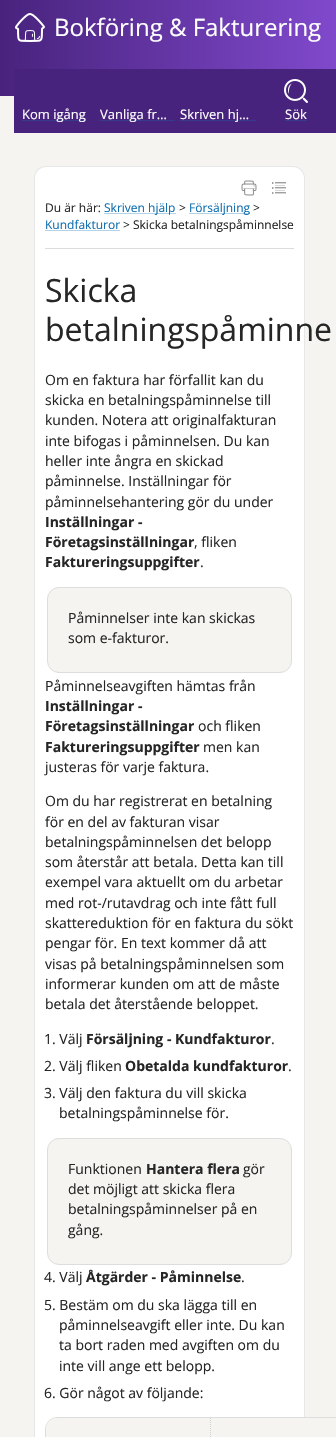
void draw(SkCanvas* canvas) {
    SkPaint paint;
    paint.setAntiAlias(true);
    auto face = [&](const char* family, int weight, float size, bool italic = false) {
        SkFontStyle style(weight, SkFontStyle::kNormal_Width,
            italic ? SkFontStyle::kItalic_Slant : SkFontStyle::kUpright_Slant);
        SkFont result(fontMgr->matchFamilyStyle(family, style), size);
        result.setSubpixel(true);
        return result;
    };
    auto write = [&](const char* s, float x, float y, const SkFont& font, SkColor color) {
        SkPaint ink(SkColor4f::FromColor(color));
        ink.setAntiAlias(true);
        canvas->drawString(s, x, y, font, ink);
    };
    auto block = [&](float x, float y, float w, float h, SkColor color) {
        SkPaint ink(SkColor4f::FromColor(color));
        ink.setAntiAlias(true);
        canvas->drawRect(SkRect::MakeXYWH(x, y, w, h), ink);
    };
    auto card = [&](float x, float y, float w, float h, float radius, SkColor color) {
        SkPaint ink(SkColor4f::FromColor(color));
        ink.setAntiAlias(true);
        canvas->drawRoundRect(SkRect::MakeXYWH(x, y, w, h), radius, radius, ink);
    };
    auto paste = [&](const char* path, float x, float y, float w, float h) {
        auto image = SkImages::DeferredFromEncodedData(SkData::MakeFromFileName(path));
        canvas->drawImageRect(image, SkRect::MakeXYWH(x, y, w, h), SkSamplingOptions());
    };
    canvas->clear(SkColorSetRGB(245, 244, 240));
    {
        const SkColor colors[] = {SkColorSetRGB(72, 35, 125), SkColorSetRGB(128, 73, 204)};
        const float stops[] = {0, 1};
        const SkPoint ends[] = {{0, 48}, {336, 48}};
        paint.setShader(SkGradientShader::MakeLinear(ends, colors, stops, 2, SkTileMode::kClamp));
        paint.setAlpha(255);
    }
    canvas->drawRect(SkRect::MakeXYWH(0, 0, 336, 96), paint);
    paste("pic1.png", 15, 13, 30, 29);
    auto kFont1 = face("Open Sans", 400, 24);
    write("Bokföring & Fakturering", 54, 36, kFont1, SK_ColorWHITE);
    block(14, 69, 322, 64, SkColorSetRGB(72, 35, 125));
    block(22, 120, 64, 1, SkColorSetRGB(55, 59, 140));
    auto kFont2 = face("Open Sans", 400, 13);
    write("Kom igång", 22, 119, kFont2, SK_ColorWHITE);
    block(100, 120, 75, 1, SkColorSetRGB(55, 59, 140));
    write("Vanliga fr…", 100, 119, kFont2, SK_ColorWHITE);
    block(180, 120, 76, 1, SkColorSetRGB(55, 59, 140));
    write("Skriven hj…", 180, 119, kFont2, SK_ColorWHITE);
    paste("pic2.png", 284, 79, 24, 24);
    write("Sök", 285, 119, kFont2, SK_ColorWHITE);
    block(285, 120, 22, 1, SkColorSetRGB(55, 59, 140));
    card(34, 166, 271, 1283, 12, SK_ColorWHITE);
    paint.setShader(nullptr);
    paint.setColor(SkColorSetRGB(231, 231, 231));
    canvas->drawPath(SkPathBuilder(SkPathFillType::kEvenOdd).moveTo(46, 166).lineTo(293, 166).cubicTo(300, 166, 305, 171, 305, 178).lineTo(305, 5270).cubicTo(305, 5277, 300, 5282, 293, 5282).lineTo(46, 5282).cubicTo(39, 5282, 34, 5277, 34, 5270).lineTo(34, 178).cubicTo(34, 171, 39, 166, 46, 166).close().moveTo(46, 167).lineTo(293, 167).cubicTo(299, 167, 304, 172, 304, 178).lineTo(304, 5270).cubicTo(304, 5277, 299, 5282, 293, 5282).lineTo(46, 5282).cubicTo(40, 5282, 35, 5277, 35, 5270).lineTo(35, 178).cubicTo(35, 172, 40, 167, 46, 167).close().detach(), paint);
    paste("pic3.png", 241, 180, 16, 16);
    paste("pic4.png", 272, 182, 14, 12);
    block(45, 248, 249, 1, SkColorSetRGB(220, 220, 220));
    auto kFont3 = face("Open Sans", 400, 12);
    write("Du är här:", 45, 212, kFont3, SkColorSetRGB(37, 38, 38));
    block(104, 213, 72, 1, SkColorSetRGB(180, 210, 230));
    write("Skriven hjälp", 104, 212, kFont3, SkColorSetRGB(17, 111, 174));
    write(">", 179, 212, kFont3, SkColorSetRGB(37, 38, 38));
    block(189, 213, 61, 1, SkColorSetRGB(180, 210, 230));
    write("Försäljning", 189, 212, kFont3, SkColorSetRGB(17, 111, 174));
    write(">", 253, 212, kFont3, SkColorSetRGB(37, 38, 38));
    write("Kundfakturor", 45, 229, kFont3, SkColorSetRGB(17, 111, 174));
    block(45, 230, 75, 1, SkColorSetRGB(180, 210, 230));
    write("> Skicka betalningspåminnelse", 123, 229, kFont3, SkColorSetRGB(37, 38, 38));
    auto kFont4 = face("Open Sans", 400, 32);
    write("Skicka", 45, 302, kFont4, SkColorSetRGB(37, 38, 38));
    write("betalningspåminne", 45, 341, kFont4, SkColorSetRGB(37, 38, 38));
    auto kFont5 = face("Open Sans", 400, 14);
    write("Om en faktura har förfallit kan du", 45, 385, kFont5, SkColorSetRGB(37, 38, 38));
    write("skicka en betalningspåminnelse till", 45, 405, kFont5, SkColorSetRGB(37, 38, 38));
    write("kunden. Notera att originalfakturan", 45, 425, kFont5, SkColorSetRGB(37, 38, 38));
    write("inte bifogas i påminnelsen. Du kan", 45, 446, kFont5, SkColorSetRGB(37, 38, 38));
    write("heller inte ångra en skickad", 45, 466, kFont5, SkColorSetRGB(37, 38, 38));
    write("påminnelse. Inställningar för", 45, 486, kFont5, SkColorSetRGB(37, 38, 38));
    write("påminnelsehantering gör du under", 45, 507, kFont5, SkColorSetRGB(37, 38, 38));
    auto kFont6 = face("Open Sans", 700, 14);
    write("Inställningar -", 45, 527, kFont6, SkColorSetRGB(37, 38, 38));
    write("Företagsinställningar", 45, 547, kFont6, SkColorSetRGB(37, 38, 38));
    write(", fliken", 194, 547, kFont5, SkColorSetRGB(37, 38, 38));
    write("Faktureringsuppgifter", 45, 567, kFont6, SkColorSetRGB(37, 38, 38));
    write(".", 200, 567, kFont5, SkColorSetRGB(37, 38, 38));
    paint.setColor(SkColorSetRGB(245, 244, 240));
    canvas->drawRoundRect(SkRect::MakeXYWH(47.5f, 587.5f, 244, 85), 11.5f, 11.5f, paint);
    paint.setStyle(SkPaint::kStroke_Style);
    paint.setStrokeWidth(1);
    paint.setColor(SkColorSetRGB(221, 221, 221));
    canvas->drawRoundRect(SkRect::MakeXYWH(47.5f, 587.5f, 244, 85), 11.5f, 11.5f, paint);
    write("Påminnelser inte kan skickas", 68, 623, kFont5, SkColorSetRGB(37, 38, 38));
    write("som e-fakturor.", 68, 643, kFont5, SkColorSetRGB(37, 38, 38));
    write("Påminnelseavgiften hämtas från", 45, 691, kFont5, SkColorSetRGB(37, 38, 38));
    write("Inställningar -", 45, 711, kFont6, SkColorSetRGB(37, 38, 38));
    write("Företagsinställningar", 45, 731, kFont6, SkColorSetRGB(37, 38, 38));
    write("och fliken", 198, 731, kFont5, SkColorSetRGB(37, 38, 38));
    write("Faktureringsuppgifter", 45, 752, kFont6, SkColorSetRGB(37, 38, 38));
    write("men kan", 203, 752, kFont5, SkColorSetRGB(37, 38, 38));
    write("justeras för varje faktura.", 45, 772, kFont5, SkColorSetRGB(37, 38, 38));
    write("Om du har registrerat en betalning", 45, 806, kFont5, SkColorSetRGB(37, 38, 38));
    write("för en del av fakturan visar", 45, 827, kFont5, SkColorSetRGB(37, 38, 38));
    write("betalningspåminnelsen det belopp", 45, 847, kFont5, SkColorSetRGB(37, 38, 38));
    write("som återstår att betala. Detta kan till", 45, 867, kFont5, SkColorSetRGB(37, 38, 38));
    write("exempel vara aktuellt om du arbetar", 45, 887, kFont5, SkColorSetRGB(37, 38, 38));
    write("med rot-/rutavdrag och inte fått full", 45, 908, kFont5, SkColorSetRGB(37, 38, 38));
    write("skattereduktion för en faktura du sökt", 45, 928, kFont5, SkColorSetRGB(37, 38, 38));
    write("pengar för. En text kommer då att", 45, 948, kFont5, SkColorSetRGB(37, 38, 38));
    write("visas på betalningspåminnelsen som", 45, 969, kFont5, SkColorSetRGB(37, 38, 38));
    write("informerar kunden om att de måste", 45, 989, kFont5, SkColorSetRGB(37, 38, 38));
    write("betala det återstående beloppet.", 45, 1009, kFont5, SkColorSetRGB(37, 38, 38));
    write("1. Välj", 44, 1044, kFont5, SkColorSetRGB(37, 38, 38));
    write("Försäljning - Kundfakturor", 86, 1044, kFont6, SkColorSetRGB(37, 38, 38));
    write(".", 271, 1044, kFont5, SkColorSetRGB(37, 38, 38));
    write("2. Välj fliken", 44, 1071, kFont5, SkColorSetRGB(37, 38, 38));
    write("Obetalda kundfakturor", 125, 1071, kFont6, SkColorSetRGB(37, 38, 38));
    write(".", 288, 1071, kFont5, SkColorSetRGB(37, 38, 38));
    write("3. Välj den faktura du vill skicka", 44, 1098, kFont5, SkColorSetRGB(37, 38, 38));
    write("betalningspåminnelse för.", 59, 1118, kFont5, SkColorSetRGB(37, 38, 38));
    paint.setStyle(SkPaint::kFill_Style);
    paint.setColor(SkColorSetRGB(245, 244, 240));
    canvas->drawRoundRect(SkRect::MakeXYWH(47.5f, 1138.5f, 244, 126), 11.5f, 11.5f, paint);
    paint.setStyle(SkPaint::kStroke_Style);
    paint.setColor(SkColorSetRGB(221, 221, 221));
    canvas->drawRoundRect(SkRect::MakeXYWH(47.5f, 1138.5f, 244, 126), 11.5f, 11.5f, paint);
    write("Funktionen", 68, 1174, kFont5, SkColorSetRGB(37, 38, 38));
    write("Hantera flera", 146, 1174, kFont6, SkColorSetRGB(37, 38, 38));
    write("gör", 243, 1174, kFont5, SkColorSetRGB(37, 38, 38));
    write("det möjligt att skicka flera", 68, 1194, kFont5, SkColorSetRGB(37, 38, 38));
    write("betalningspåminnelser på en", 68, 1214, kFont5, SkColorSetRGB(37, 38, 38));
    write("gång.", 68, 1235, kFont5, SkColorSetRGB(37, 38, 38));
    write("4. Välj", 44, 1282, kFont5, SkColorSetRGB(37, 38, 38));
    write("Åtgärder - Påminnelse", 86, 1282, kFont6, SkColorSetRGB(37, 38, 38));
    write(".", 241, 1282, kFont5, SkColorSetRGB(37, 38, 38));
    write("5. Bestäm om du ska lägga till en", 44, 1310, kFont5, SkColorSetRGB(37, 38, 38));
    write("påminnelseavgift eller inte. Du kan", 59, 1330, kFont5, SkColorSetRGB(37, 38, 38));
    write("ta bort raden med avgiften om du", 59, 1350, kFont5, SkColorSetRGB(37, 38, 38));
    write("inte vill ange ett belopp.", 59, 1371, kFont5, SkColorSetRGB(37, 38, 38));
    write("6. Gör något av följande:", 44, 1398, kFont5, SkColorSetRGB(37, 38, 38));
    canvas->drawRoundRect(SkRect::MakeXYWH(45.5f, 1417.5f, 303, 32), 11.5f, 11.5f, paint);
    paint.setStyle(SkPaint::kFill_Style);
    paint.setColor(SkColorSetRGB(245, 244, 240));
    canvas->drawPath(SkPathBuilder().moveTo(57, 1418).lineTo(210, 1418).lineTo(210, 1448).lineTo(46, 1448).lineTo(46, 1429).cubicTo(46, 1423, 51, 1418, 57, 1418).close().detach(), paint);
    block(210, 1418, 95, 19, SkColorSetRGB(245, 244, 240));
    paint.setStyle(SkPaint::kStroke_Style);
    paint.setColor(SkColorSetRGB(208, 208, 208));
    paint.setPathEffect(SkDashPathEffect::Make({{1, 1}}, 0));
    canvas->drawPath(SkPathBuilder().moveTo(210.5f, 1418).lineTo(210.5f, 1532).detach(), paint);
    paint.setPathEffect(nullptr);
}
